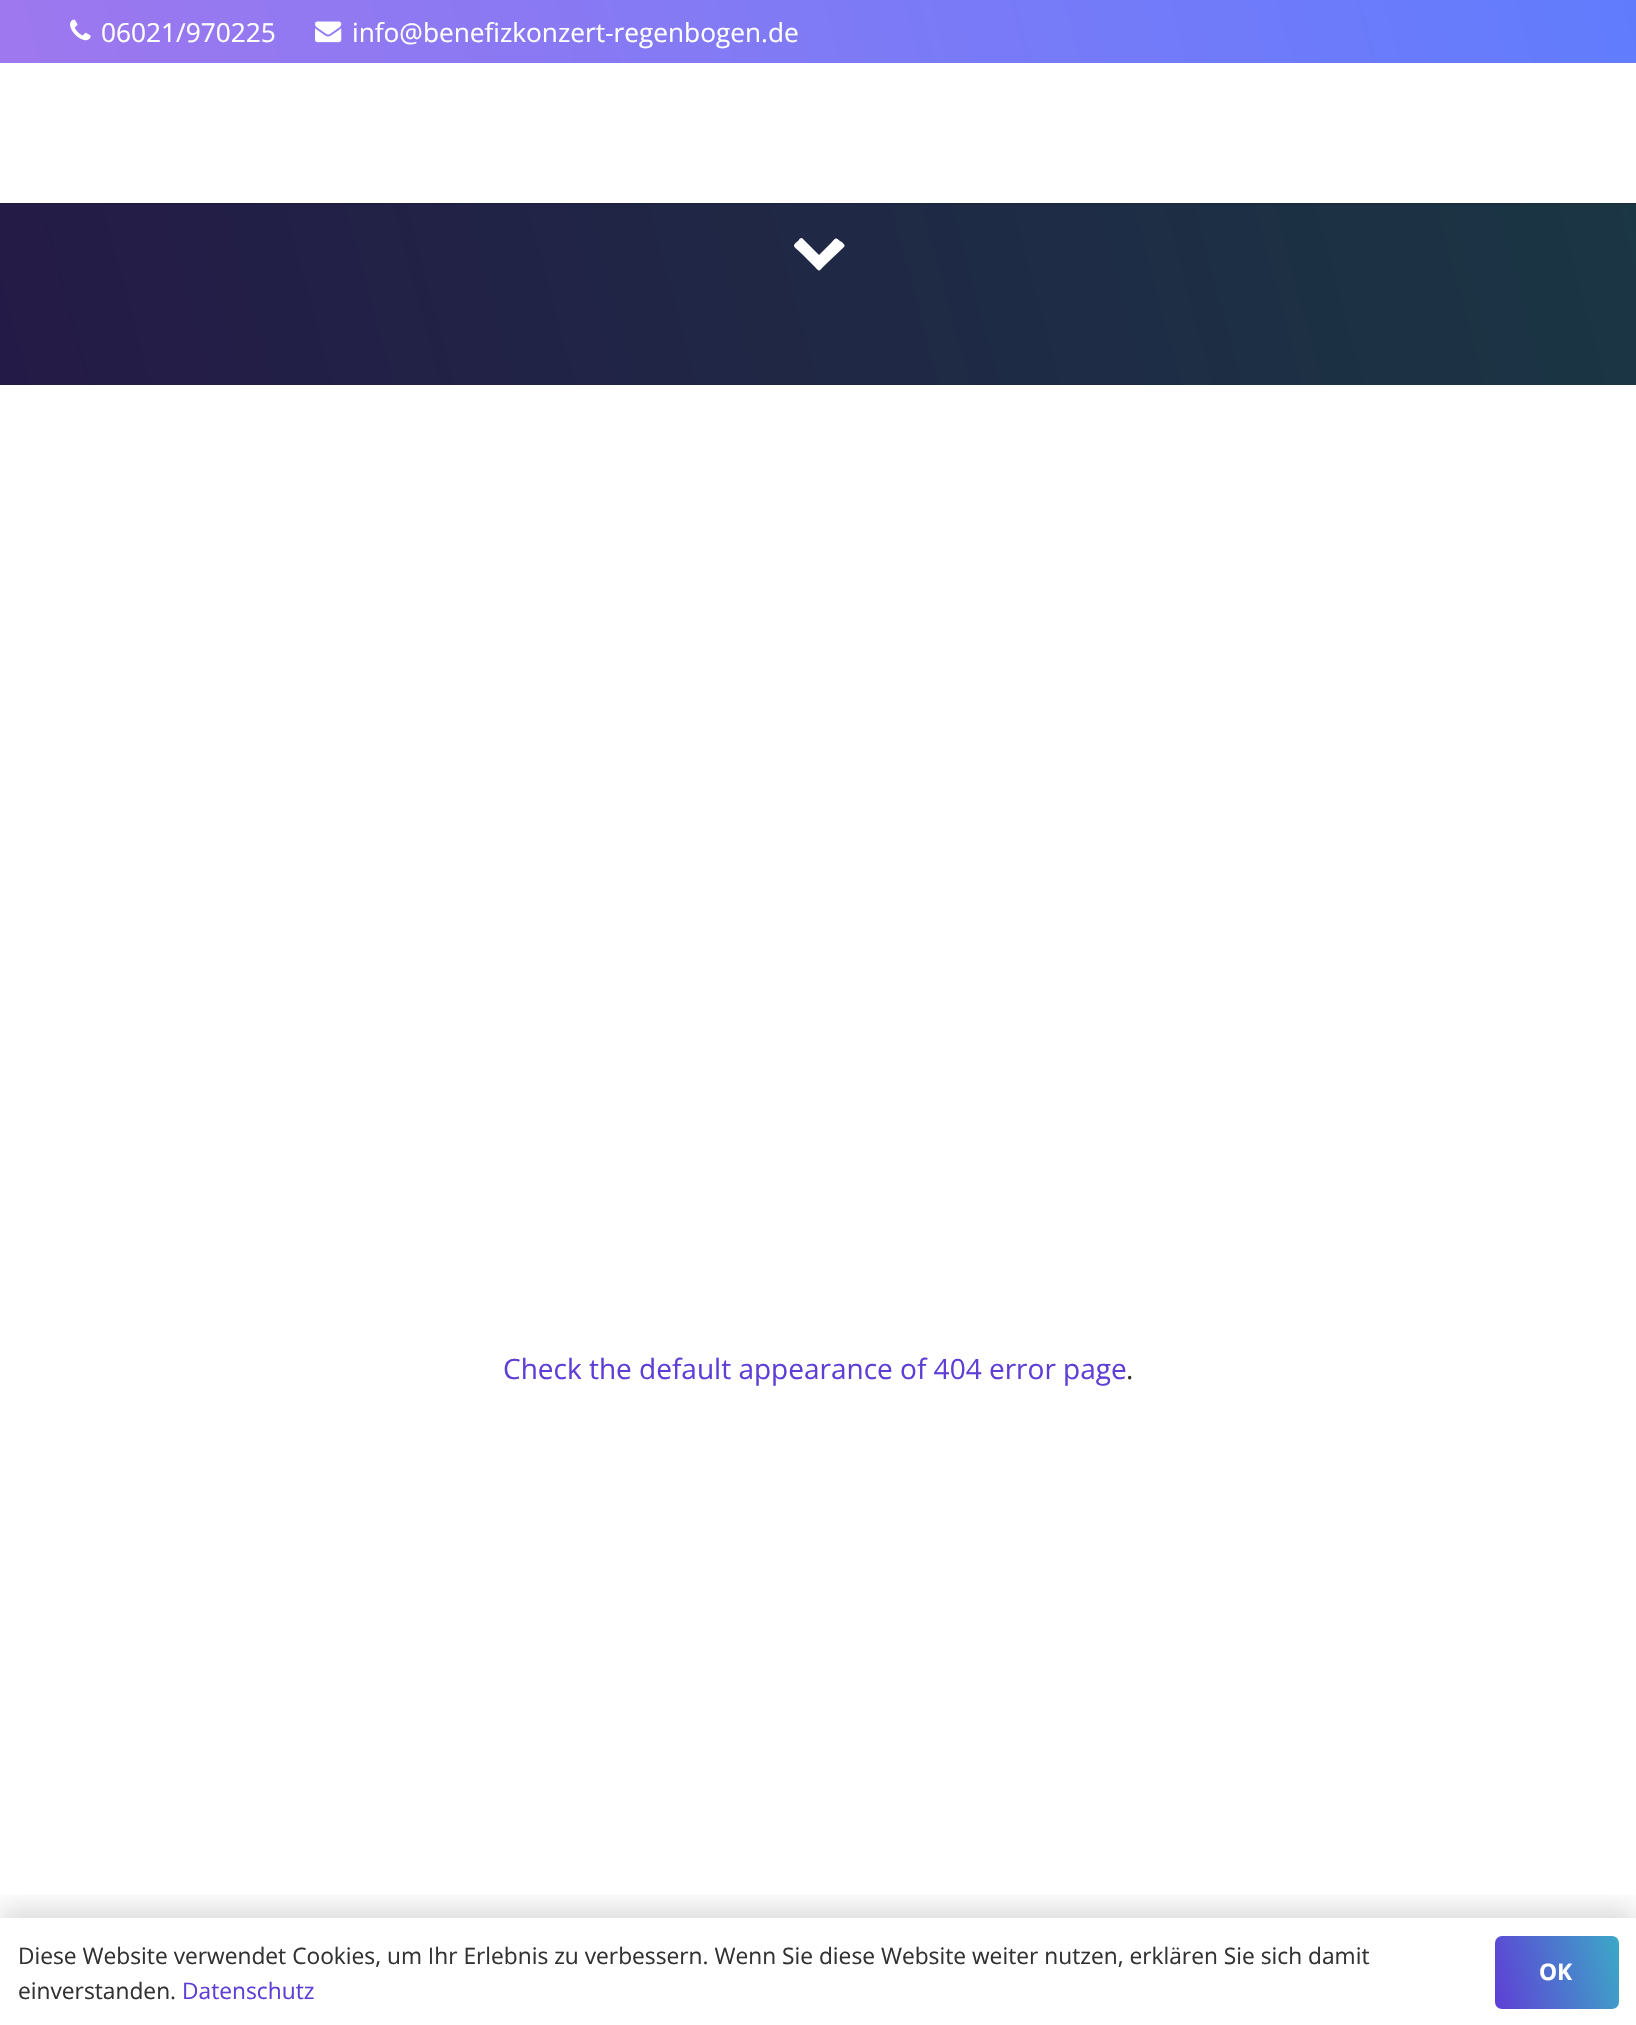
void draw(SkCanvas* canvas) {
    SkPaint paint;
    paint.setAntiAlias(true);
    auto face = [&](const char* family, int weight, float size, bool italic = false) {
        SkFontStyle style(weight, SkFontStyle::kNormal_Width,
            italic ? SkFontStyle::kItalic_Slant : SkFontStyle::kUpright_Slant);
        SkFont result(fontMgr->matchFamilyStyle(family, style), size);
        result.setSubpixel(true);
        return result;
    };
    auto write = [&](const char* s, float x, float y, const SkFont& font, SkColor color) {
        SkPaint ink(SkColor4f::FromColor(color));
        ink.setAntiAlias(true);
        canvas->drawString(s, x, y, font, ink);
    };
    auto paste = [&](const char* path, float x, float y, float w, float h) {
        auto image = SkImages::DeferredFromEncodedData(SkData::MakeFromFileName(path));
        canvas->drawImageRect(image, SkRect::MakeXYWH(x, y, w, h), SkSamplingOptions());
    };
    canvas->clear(SK_ColorWHITE);
    {
        const SkColor colors[] = {SkColorSetRGB(158, 120, 238), SkColorSetRGB(96, 124, 253)};
        const float stops[] = {0, 1};
        const SkPoint ends[] = {{47, 238}, {1589, -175}};
        paint.setShader(SkGradientShader::MakeLinear(ends, colors, stops, 2, SkTileMode::kClamp));
        paint.setAlpha(255);
    }
    canvas->drawRect(SkRect::MakeXYWH(0, 0, 1636, 63), paint);
    paste("pic1.png", 70, 19, 21, 22);
    auto kFont1 = face("Open Sans", 400, 26.25f);
    write("06021/970225", 101, 42, kFont1, SK_ColorWHITE);
    paste("pic2.png", 315, 21, 27, 22);
    write("info@benefizkonzert-regenbogen.de", 352, 42, kFont1, SK_ColorWHITE);
    {
        const SkColor colors[] = {SkColorSetRGB(36, 26, 71), SkColorSetRGB(25, 58, 67)};
        const float stops[] = {0, 1};
        const SkPoint ends[] = {{-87, 61}, {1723, -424}};
        paint.setShader(SkGradientShader::MakeLinear(ends, colors, stops, 2, SkTileMode::kClamp));
        paint.setAlpha(255);
    }
    canvas->drawRect(SkRect::MakeXYWH(0, 205, 1636, 180), paint);
    {
        const SkColor colors[] = {SkColorSetRGB(33, 24, 65), SkColorSetRGB(23, 53, 62)};
        const float stops[] = {0, 1};
        const SkPoint ends[] = {{-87, 61}, {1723, -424}};
        paint.setShader(SkGradientShader::MakeLinear(ends, colors, stops, 2, SkTileMode::kClamp));
        paint.setAlpha(255);
    }
    canvas->drawRect(SkRect::MakeXYWH(0, 203, 1636, 2), paint);
    paint.setShader(nullptr);
    paint.setColor(SK_ColorWHITE);
    canvas->drawPath(SkPathBuilder().moveTo(844, 247).cubicTo(846, 245, 842, 242, 840, 241).cubicTo(835, 236, 835, 239, 830, 244).lineTo(819, 255).lineTo(802, 238).cubicTo(800, 238, 799, 239, 799, 240).cubicTo(791, 247, 793, 245, 802, 254).lineTo(814, 266).cubicTo(820, 272, 818, 272, 824, 266).close().detach(), paint);
    auto kFont2 = face("Open Sans", 400, 28);
    write("Check the default appearance of 404 error page", 503, 1379, kFont2, SkColorSetRGB(95, 62, 214));
    write(".", 1126, 1379, kFont2, SkColorSetRGB(49, 50, 51));
    canvas->save();
    canvas->clipRect(SkRect::MakeXYWH(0, 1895, 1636, 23));
    paint.setColor(SkColorSetARGB(38, 0, 0, 0));
    paint.setMaskFilter(SkMaskFilter::MakeBlur(kNormal_SkBlurStyle, 13));
    canvas->drawRect(SkRect::MakeXYWH(0, 1909, 1636, 109), paint);
    paint.setMaskFilter(nullptr);
    canvas->restore();
    auto kFont3 = face("Open Sans", 400, 22.75f);
    write("Diese Website verwendet Cookies, um Ihr Erlebnis zu verbessern. Wenn Sie diese Website weiter nutzen, erklären Sie sich damit", 18, 1964, kFont3, SkColorSetRGB(49, 50, 51));
    write("einverstanden.", 18, 1999, kFont3, SkColorSetRGB(49, 50, 51));
    write("Datenschutz", 182, 1999, kFont3, SkColorSetRGB(95, 62, 214));
    {
        const SkColor colors[] = {SkColorSetRGB(95, 62, 214), SkColorSetRGB(60, 169, 199)};
        const float stops[] = {0, 1};
        const SkPoint ends[] = {{1489, 1990}, {1624, 1954}};
        paint.setShader(SkGradientShader::MakeLinear(ends, colors, stops, 2, SkTileMode::kClamp));
        paint.setAlpha(255);
    }
    canvas->drawRoundRect(SkRect::MakeXYWH(1495, 1936, 124, 73), 7, 7, paint);
    auto kFont4 = face("Open Sans", 700, 22.75f);
    write("OK", 1539, 1980, kFont4, SK_ColorWHITE);
}
